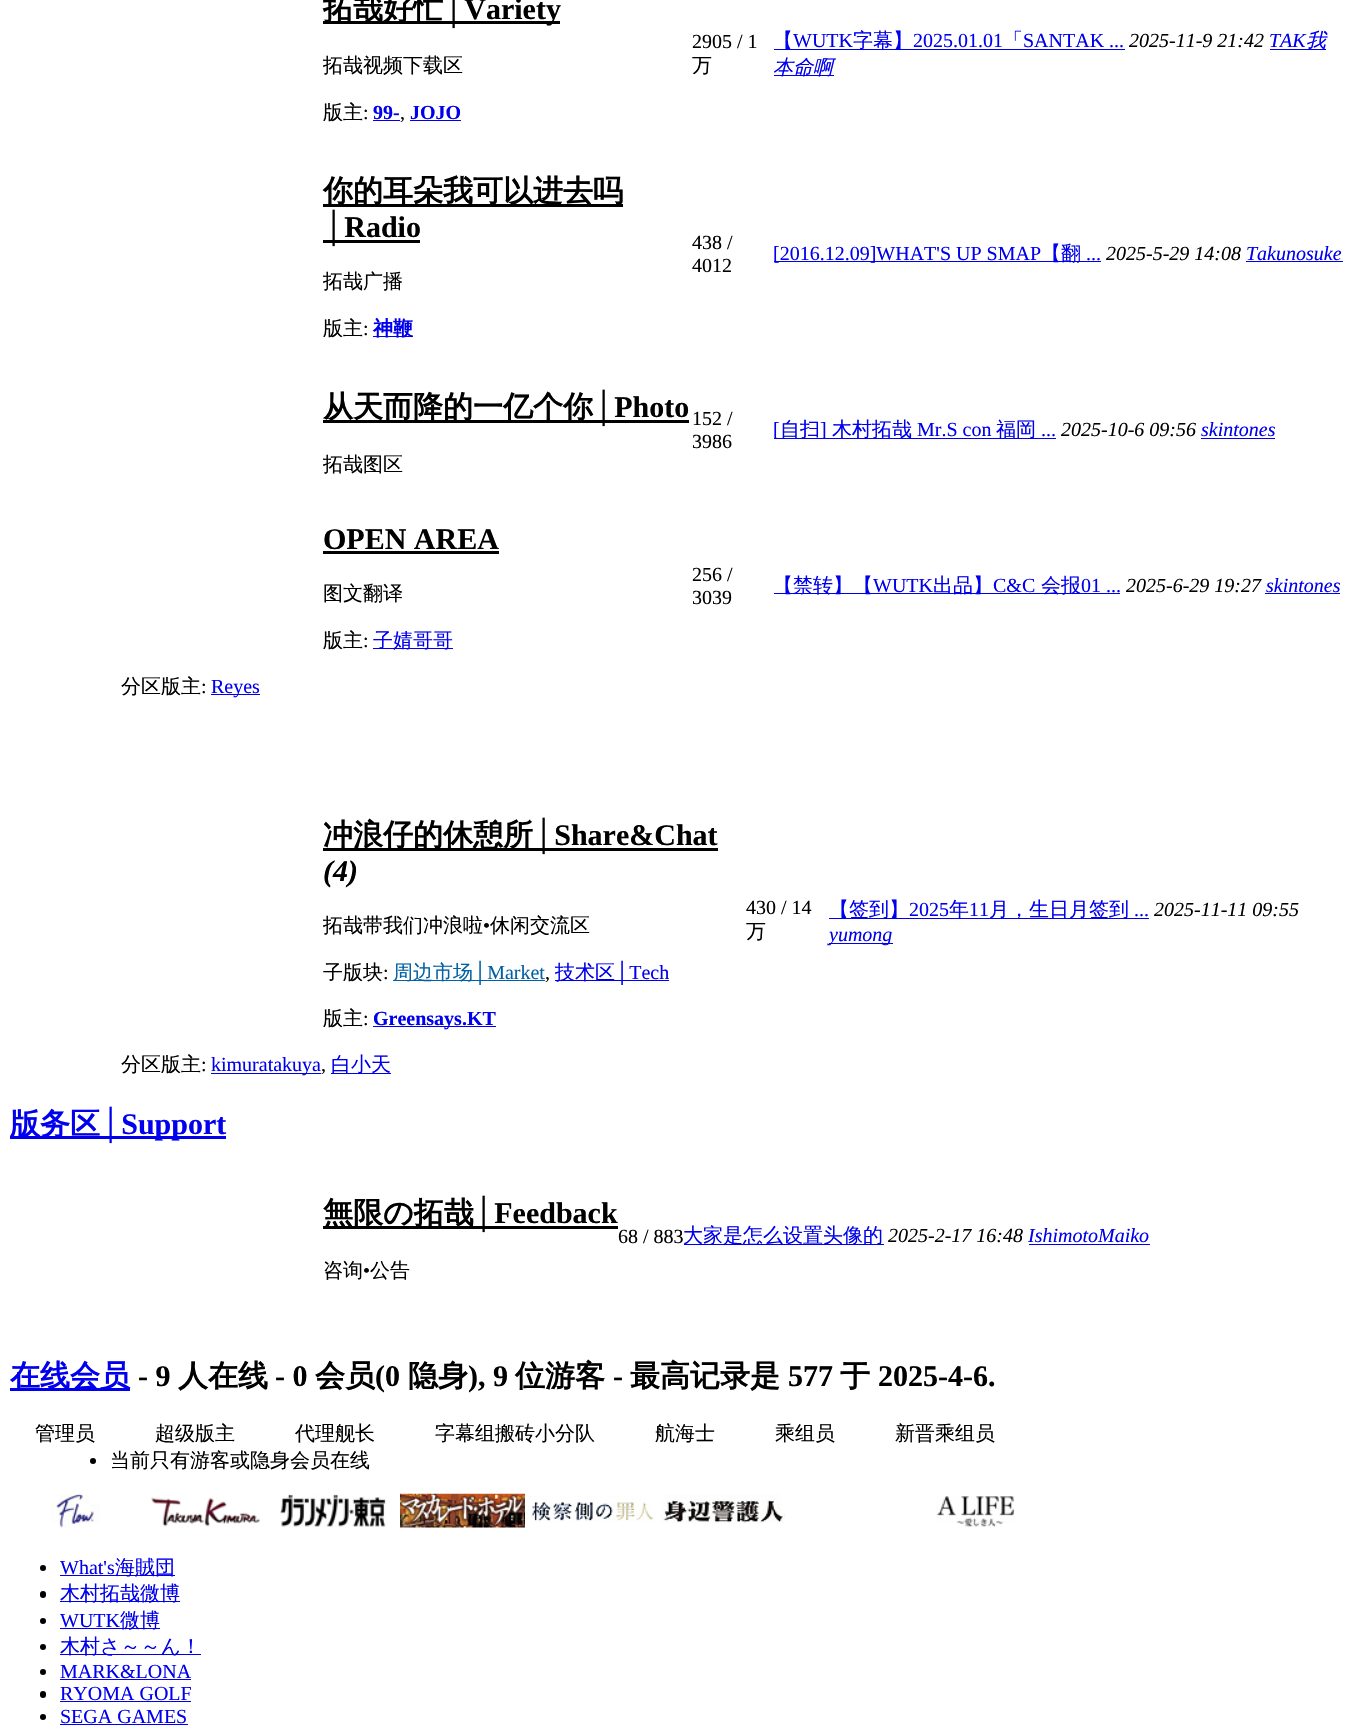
void draw(SkCanvas* canvas) {
    SkPaint paint;
    paint.setAntiAlias(true);
    auto face = [&](const char* family, int weight, float size, bool italic = false) {
        SkFontStyle style(weight, SkFontStyle::kNormal_Width,
            italic ? SkFontStyle::kItalic_Slant : SkFontStyle::kUpright_Slant);
        SkFont result(fontMgr->matchFamilyStyle(family, style), size);
        result.setSubpixel(true);
        return result;
    };
    auto write = [&](const char* s, float x, float y, const SkFont& font, SkColor color) {
        SkPaint ink(SkColor4f::FromColor(color));
        ink.setAntiAlias(true);
        canvas->drawString(s, x, y, font, ink);
    };
    auto block = [&](float x, float y, float w, float h, SkColor color) {
        SkPaint ink(SkColor4f::FromColor(color));
        ink.setAntiAlias(true);
        canvas->drawRect(SkRect::MakeXYWH(x, y, w, h), ink);
    };
    auto card = [&](float x, float y, float w, float h, float radius, SkColor color) {
        SkPaint ink(SkColor4f::FromColor(color));
        ink.setAntiAlias(true);
        canvas->drawRoundRect(SkRect::MakeXYWH(x, y, w, h), radius, radius, ink);
    };
    auto paste = [&](const char* path, float x, float y, float w, float h) {
        auto image = SkImages::DeferredFromEncodedData(SkData::MakeFromFileName(path));
        canvas->drawImageRect(image, SkRect::MakeXYWH(x, y, w, h), SkSamplingOptions());
    };
    canvas->clear(SK_ColorWHITE);
    block(323, 21, 237, 3, SK_ColorBLACK);
    auto kFont1 = face("WenQuanYi Zen Hei", 700, 30);
    write("拓哉好忙", 323, 19, kFont1, SK_ColorBLACK);
    auto kFont2 = face("Liberation Serif", 700, 30);
    write("│Variety", 443, 19, kFont2, SK_ColorBLACK);
    auto kFont3 = face("WenQuanYi Zen Hei", 500, 20);
    write("拓哉视频下载区", 323, 72, kFont3, SK_ColorBLACK);
    write("版主", 323, 119, kFont3, SK_ColorBLACK);
    auto kFont4 = face("Liberation Serif", 400, 20);
    write(":", 363, 119, kFont4, SK_ColorBLACK);
    auto kFont5 = face("Liberation Serif", 700, 20);
    write("99-", 373, 119, kFont5, SkColorSetRGB(0, 0, 238));
    write(",", 400, 119, kFont4, SK_ColorBLACK);
    block(373, 120, 27, 1, SkColorSetRGB(0, 0, 238));
    block(410, 120, 51, 1, SkColorSetRGB(0, 0, 238));
    write("JOJO", 410, 119, kFont5, SkColorSetRGB(0, 0, 238));
    write("2905 / 1", 692, 48, kFont4, SK_ColorBLACK);
    write("万", 692, 72, kFont3, SK_ColorBLACK);
    block(774, 49, 351, 1, SkColorSetRGB(0, 0, 238));
    write("【", 773, 47, kFont3, SkColorSetRGB(0, 0, 238));
    write("WUTK", 793, 47, kFont4, SkColorSetRGB(0, 0, 238));
    write("字幕】", 853, 47, kFont3, SkColorSetRGB(0, 0, 238));
    write("2025.01.01", 913, 47, kFont4, SkColorSetRGB(0, 0, 238));
    write("「", 1003, 47, kFont3, SkColorSetRGB(0, 0, 238));
    write("SANTAK ...", 1023, 47, kFont4, SkColorSetRGB(0, 0, 238));
    auto kFont6 = face("Liberation Serif", 400, 20, true);
    write("2025-11-9 21:42", 1129, 47, kFont6, SK_ColorBLACK);
    write("TAK", 1269, 47, kFont6, SkColorSetRGB(0, 0, 238));
    block(1270, 49, 56, 1, SkColorSetRGB(0, 0, 238));
    auto kFont7 = face("WenQuanYi Zen Hei", 500, 20, true);
    write("我", 1306, 47, kFont7, SkColorSetRGB(0, 0, 238));
    block(774, 75, 60, 1, SkColorSetRGB(0, 0, 238));
    write("本命啊", 773, 74, kFont7, SkColorSetRGB(0, 0, 238));
    block(323, 204, 300, 3, SK_ColorBLACK);
    write("你的耳朵我可以进去吗", 323, 201, kFont1, SK_ColorBLACK);
    block(323, 240, 97, 3, SK_ColorBLACK);
    write("│Radio", 323, 237, kFont2, SK_ColorBLACK);
    write("拓哉广播", 323, 288, kFont3, SK_ColorBLACK);
    write("版主", 323, 335, kFont3, SK_ColorBLACK);
    write(":", 363, 335, kFont4, SK_ColorBLACK);
    block(373, 336, 40, 1, SkColorSetRGB(0, 0, 238));
    auto kFont8 = face("WenQuanYi Zen Hei", 700, 20);
    write("神鞭", 373, 335, kFont8, SkColorSetRGB(0, 0, 238));
    write("438 /", 692, 249, kFont4, SK_ColorBLACK);
    write("4012", 692, 272, kFont4, SK_ColorBLACK);
    block(774, 261, 327, 1, SkColorSetRGB(0, 0, 238));
    write("[2016.12.09]WHAT'S UP SMAP", 773, 260, kFont4, SkColorSetRGB(0, 0, 238));
    write("【翻", 1041, 260, kFont3, SkColorSetRGB(0, 0, 238));
    write("...", 1086, 260, kFont4, SkColorSetRGB(0, 0, 238));
    write("2025-5-29 14:08", 1106, 260, kFont6, SK_ColorBLACK);
    write("Takunosuke", 1246, 260, kFont6, SkColorSetRGB(0, 0, 238));
    block(1246, 261, 97, 1, SkColorSetRGB(0, 0, 238));
    block(323, 420, 366, 3, SK_ColorBLACK);
    write("从天而降的一亿个你", 323, 417, kFont1, SK_ColorBLACK);
    write("│Photo", 593, 417, kFont2, SK_ColorBLACK);
    write("拓哉图区", 323, 471, kFont3, SK_ColorBLACK);
    write("152 /", 692, 425, kFont4, SK_ColorBLACK);
    write("3986", 692, 448, kFont4, SK_ColorBLACK);
    block(774, 438, 282, 1, SkColorSetRGB(0, 0, 238));
    write("[", 773, 436, kFont4, SkColorSetRGB(0, 0, 238));
    write("自扫", 780, 436, kFont3, SkColorSetRGB(0, 0, 238));
    write("]", 820, 436, kFont4, SkColorSetRGB(0, 0, 238));
    write("木村拓哉", 832, 436, kFont3, SkColorSetRGB(0, 0, 238));
    write("Mr.S con", 917, 436, kFont4, SkColorSetRGB(0, 0, 238));
    write("福岡", 996, 436, kFont3, SkColorSetRGB(0, 0, 238));
    write("...", 1041, 436, kFont4, SkColorSetRGB(0, 0, 238));
    write("2025-10-6 09:56", 1061, 436, kFont6, SK_ColorBLACK);
    write("skintones", 1201, 436, kFont6, SkColorSetRGB(0, 0, 238));
    block(1201, 438, 74, 1, SkColorSetRGB(0, 0, 238));
    write("OPEN AREA", 323, 549, kFont2, SK_ColorBLACK);
    block(323, 551, 176, 3, SK_ColorBLACK);
    write("图文翻译", 323, 600, kFont3, SK_ColorBLACK);
    write("版主", 323, 647, kFont3, SK_ColorBLACK);
    write(":", 363, 647, kFont4, SK_ColorBLACK);
    block(373, 648, 80, 1, SkColorSetRGB(0, 0, 238));
    write("子婧哥哥", 373, 647, kFont3, SkColorSetRGB(0, 0, 238));
    write("256 /", 692, 581, kFont4, SK_ColorBLACK);
    write("3039", 692, 604, kFont4, SK_ColorBLACK);
    block(774, 593, 346, 1, SkColorSetRGB(0, 0, 238));
    write("【禁转】【", 773, 592, kFont3, SkColorSetRGB(0, 0, 238));
    write("WUTK", 873, 592, kFont4, SkColorSetRGB(0, 0, 238));
    write("出品】", 933, 592, kFont3, SkColorSetRGB(0, 0, 238));
    write("C&C", 993, 592, kFont4, SkColorSetRGB(0, 0, 238));
    write("会报", 1041, 592, kFont3, SkColorSetRGB(0, 0, 238));
    write("01 ...", 1081, 592, kFont4, SkColorSetRGB(0, 0, 238));
    write("2025-6-29 19:27", 1126, 592, kFont6, SK_ColorBLACK);
    write("skintones", 1266, 592, kFont6, SkColorSetRGB(0, 0, 238));
    block(1265, 593, 75, 1, SkColorSetRGB(0, 0, 238));
    write("分区版主", 121, 693, kFont3, SK_ColorBLACK);
    write(":", 201, 693, kFont4, SK_ColorBLACK);
    block(211, 694, 49, 1, SkColorSetRGB(0, 0, 238));
    write("Reyes", 211, 693, kFont4, SkColorSetRGB(0, 0, 238));
    block(323, 848, 395, 3, SK_ColorBLACK);
    write("冲浪仔的休憩所", 323, 845, kFont1, SK_ColorBLACK);
    write("│Share&Chat", 533, 845, kFont2, SK_ColorBLACK);
    auto kFont9 = face("Liberation Serif", 700, 30, true);
    write("(4)", 323, 881, kFont9, SK_ColorBLACK);
    write("拓哉带我们冲浪啦", 323, 932, kFont3, SK_ColorBLACK);
    write("•", 483, 932, kFont4, SK_ColorBLACK);
    write("休闲交流区", 490, 932, kFont3, SK_ColorBLACK);
    write("子版块", 323, 979, kFont3, SK_ColorBLACK);
    write(":", 383, 979, kFont4, SK_ColorBLACK);
    block(393, 980, 152, 1, SkColorSetRGB(3, 97, 163));
    write("周边市场", 393, 979, kFont3, SkColorSetRGB(3, 97, 163));
    write("│Market", 473, 979, kFont4, SkColorSetRGB(3, 97, 163));
    write(",", 545, 979, kFont4, SK_ColorBLACK);
    block(555, 980, 114, 1, SkColorSetRGB(0, 0, 238));
    write("技术区", 555, 979, kFont3, SkColorSetRGB(0, 0, 238));
    write("│Tech", 615, 979, kFont4, SkColorSetRGB(0, 0, 238));
    write("版主", 323, 1025, kFont3, SK_ColorBLACK);
    write(":", 363, 1025, kFont4, SK_ColorBLACK);
    block(373, 1026, 123, 1, SkColorSetRGB(0, 0, 238));
    write("Greensays.KT", 373, 1025, kFont5, SkColorSetRGB(0, 0, 238));
    write("430 / 14", 746, 914, kFont4, SK_ColorBLACK);
    write("万", 746, 938, kFont3, SK_ColorBLACK);
    block(829, 918, 320, 1, SkColorSetRGB(0, 0, 238));
    write("【签到】", 829, 916, kFont3, SkColorSetRGB(0, 0, 238));
    write("2025", 909, 916, kFont4, SkColorSetRGB(0, 0, 238));
    write("年", 949, 916, kFont3, SkColorSetRGB(0, 0, 238));
    write("11", 969, 916, kFont4, SkColorSetRGB(0, 0, 238));
    write("月，生日月签到", 989, 916, kFont3, SkColorSetRGB(0, 0, 238));
    write("...", 1134, 916, kFont4, SkColorSetRGB(0, 0, 238));
    write("2025-11-11 09:55", 1154, 916, kFont6, SK_ColorBLACK);
    block(829, 943, 64, 1, SkColorSetRGB(0, 0, 238));
    write("yumong", 829, 941, kFont6, SkColorSetRGB(0, 0, 238));
    write("分区版主", 121, 1071, kFont3, SK_ColorBLACK);
    write(":", 201, 1071, kFont4, SK_ColorBLACK);
    block(211, 1073, 110, 1, SkColorSetRGB(0, 0, 238));
    write("kimuratakuya", 211, 1071, kFont4, SkColorSetRGB(0, 0, 238));
    write(",", 321, 1071, kFont4, SK_ColorBLACK);
    block(331, 1073, 60, 1, SkColorSetRGB(0, 0, 238));
    write("白小天", 331, 1071, kFont3, SkColorSetRGB(0, 0, 238));
    block(10, 1136, 216, 3, SkColorSetRGB(0, 0, 238));
    write("版务区", 10, 1134, kFont1, SkColorSetRGB(0, 0, 238));
    write("│Support", 100, 1134, kFont2, SkColorSetRGB(0, 0, 238));
    block(323, 1226, 295, 3, SK_ColorBLACK);
    write("無限の拓哉", 323, 1223, kFont1, SK_ColorBLACK);
    write("│Feedback", 473, 1223, kFont2, SK_ColorBLACK);
    write("咨询", 323, 1277, kFont3, SK_ColorBLACK);
    write("•", 363, 1277, kFont4, SK_ColorBLACK);
    write("公告", 370, 1277, kFont3, SK_ColorBLACK);
    write("68 / 883", 618, 1243, kFont4, SK_ColorBLACK);
    block(684, 1244, 200, 1, SkColorSetRGB(0, 0, 238));
    write("大家是怎么设置头像的", 683, 1242, kFont3, SkColorSetRGB(0, 0, 238));
    write("2025-2-17 16:48", 888, 1242, kFont6, SK_ColorBLACK);
    write("IshimotoMaiko", 1028, 1242, kFont6, SkColorSetRGB(0, 0, 238));
    block(1029, 1244, 121, 1, SkColorSetRGB(0, 0, 238));
    block(10, 1388, 120, 3, SkColorSetRGB(0, 0, 238));
    write("在线会员", 10, 1386, kFont1, SkColorSetRGB(0, 0, 238));
    write("- 9", 138, 1386, kFont2, SK_ColorBLACK);
    write("人在线", 178, 1386, kFont1, SK_ColorBLACK);
    write("- 0", 275, 1386, kFont2, SK_ColorBLACK);
    write("会员", 315, 1386, kFont1, SK_ColorBLACK);
    write("(0", 375, 1386, kFont2, SK_ColorBLACK);
    write("隐身", 408, 1386, kFont1, SK_ColorBLACK);
    write("), 9", 468, 1386, kFont2, SK_ColorBLACK);
    write("位游客", 515, 1386, kFont1, SK_ColorBLACK);
    write("-", 613, 1386, kFont2, SK_ColorBLACK);
    write("最高记录是", 630, 1386, kFont1, SK_ColorBLACK);
    write("577", 788, 1386, kFont2, SK_ColorBLACK);
    write("于", 840, 1386, kFont1, SK_ColorBLACK);
    write("2025-4-6.", 878, 1386, kFont2, SK_ColorBLACK);
    write("管理员", 35, 1440, kFont3, SK_ColorBLACK);
    write("超级版主", 155, 1440, kFont3, SK_ColorBLACK);
    write("代理舰长", 295, 1440, kFont3, SK_ColorBLACK);
    write("字幕组搬砖小分队", 435, 1440, kFont3, SK_ColorBLACK);
    write("航海士", 655, 1440, kFont3, SK_ColorBLACK);
    write("乘组员", 775, 1440, kFont3, SK_ColorBLACK);
    write("新晋乘组员", 895, 1440, kFont3, SK_ColorBLACK);
    paint.setColor(SK_ColorBLACK);
    canvas->drawCircle(93, 1461, 3, paint);
    write("当前只有游客或隐身会员在线", 110, 1467, kFont3, SK_ColorBLACK);
    paste("pic1.png", 50, 1493, 50, 35);
    paste("pic2.png", 151, 1497, 110, 30);
    paste("pic3.png", 280, 1494, 106, 33);
    paste("pic4.png", 400, 1493, 125, 35);
    paste("pic5.png", 531, 1495, 123, 27);
    paste("pic6.png", 661, 1494, 124, 30);
    paste("pic7.png", 936, 1496, 79, 31);
    canvas->drawCircle(43, 1568, 3, paint);
    write("What's", 60, 1574, kFont4, SkColorSetRGB(0, 0, 238));
    block(60, 1575, 115, 1, SkColorSetRGB(0, 0, 238));
    write("海賊団", 115, 1574, kFont3, SkColorSetRGB(0, 0, 238));
    card(40, 1591, 6, 7, 3, SK_ColorBLACK);
    block(60, 1601, 120, 1, SkColorSetRGB(0, 0, 238));
    write("木村拓哉微博", 60, 1600, kFont3, SkColorSetRGB(0, 0, 238));
    canvas->drawCircle(43, 1621, 3, paint);
    write("WUTK", 60, 1627, kFont4, SkColorSetRGB(0, 0, 238));
    block(60, 1628, 100, 1, SkColorSetRGB(0, 0, 238));
    write("微博", 120, 1627, kFont3, SkColorSetRGB(0, 0, 238));
    canvas->drawCircle(43, 1647, 3, paint);
    block(60, 1654, 141, 1, SkColorSetRGB(0, 0, 238));
    write("木村さ～～ん！", 60, 1653, kFont3, SkColorSetRGB(0, 0, 238));
    canvas->drawCircle(43, 1672, 3, paint);
    write("MARK&LONA", 60, 1678, kFont4, SkColorSetRGB(0, 0, 238));
    block(60, 1679, 131, 1, SkColorSetRGB(0, 0, 238));
    card(40, 1691, 6, 7, 3, SK_ColorBLACK);
    write("RYOMA GOLF", 60, 1700, kFont4, SkColorSetRGB(0, 0, 238));
    block(60, 1701, 131, 1, SkColorSetRGB(0, 0, 238));
    canvas->drawCircle(43, 1717, 3, paint);
    write("SEGA GAMES", 60, 1723, kFont4, SkColorSetRGB(0, 0, 238));
    block(60, 1724, 128, 1, SkColorSetRGB(0, 0, 238));
}
